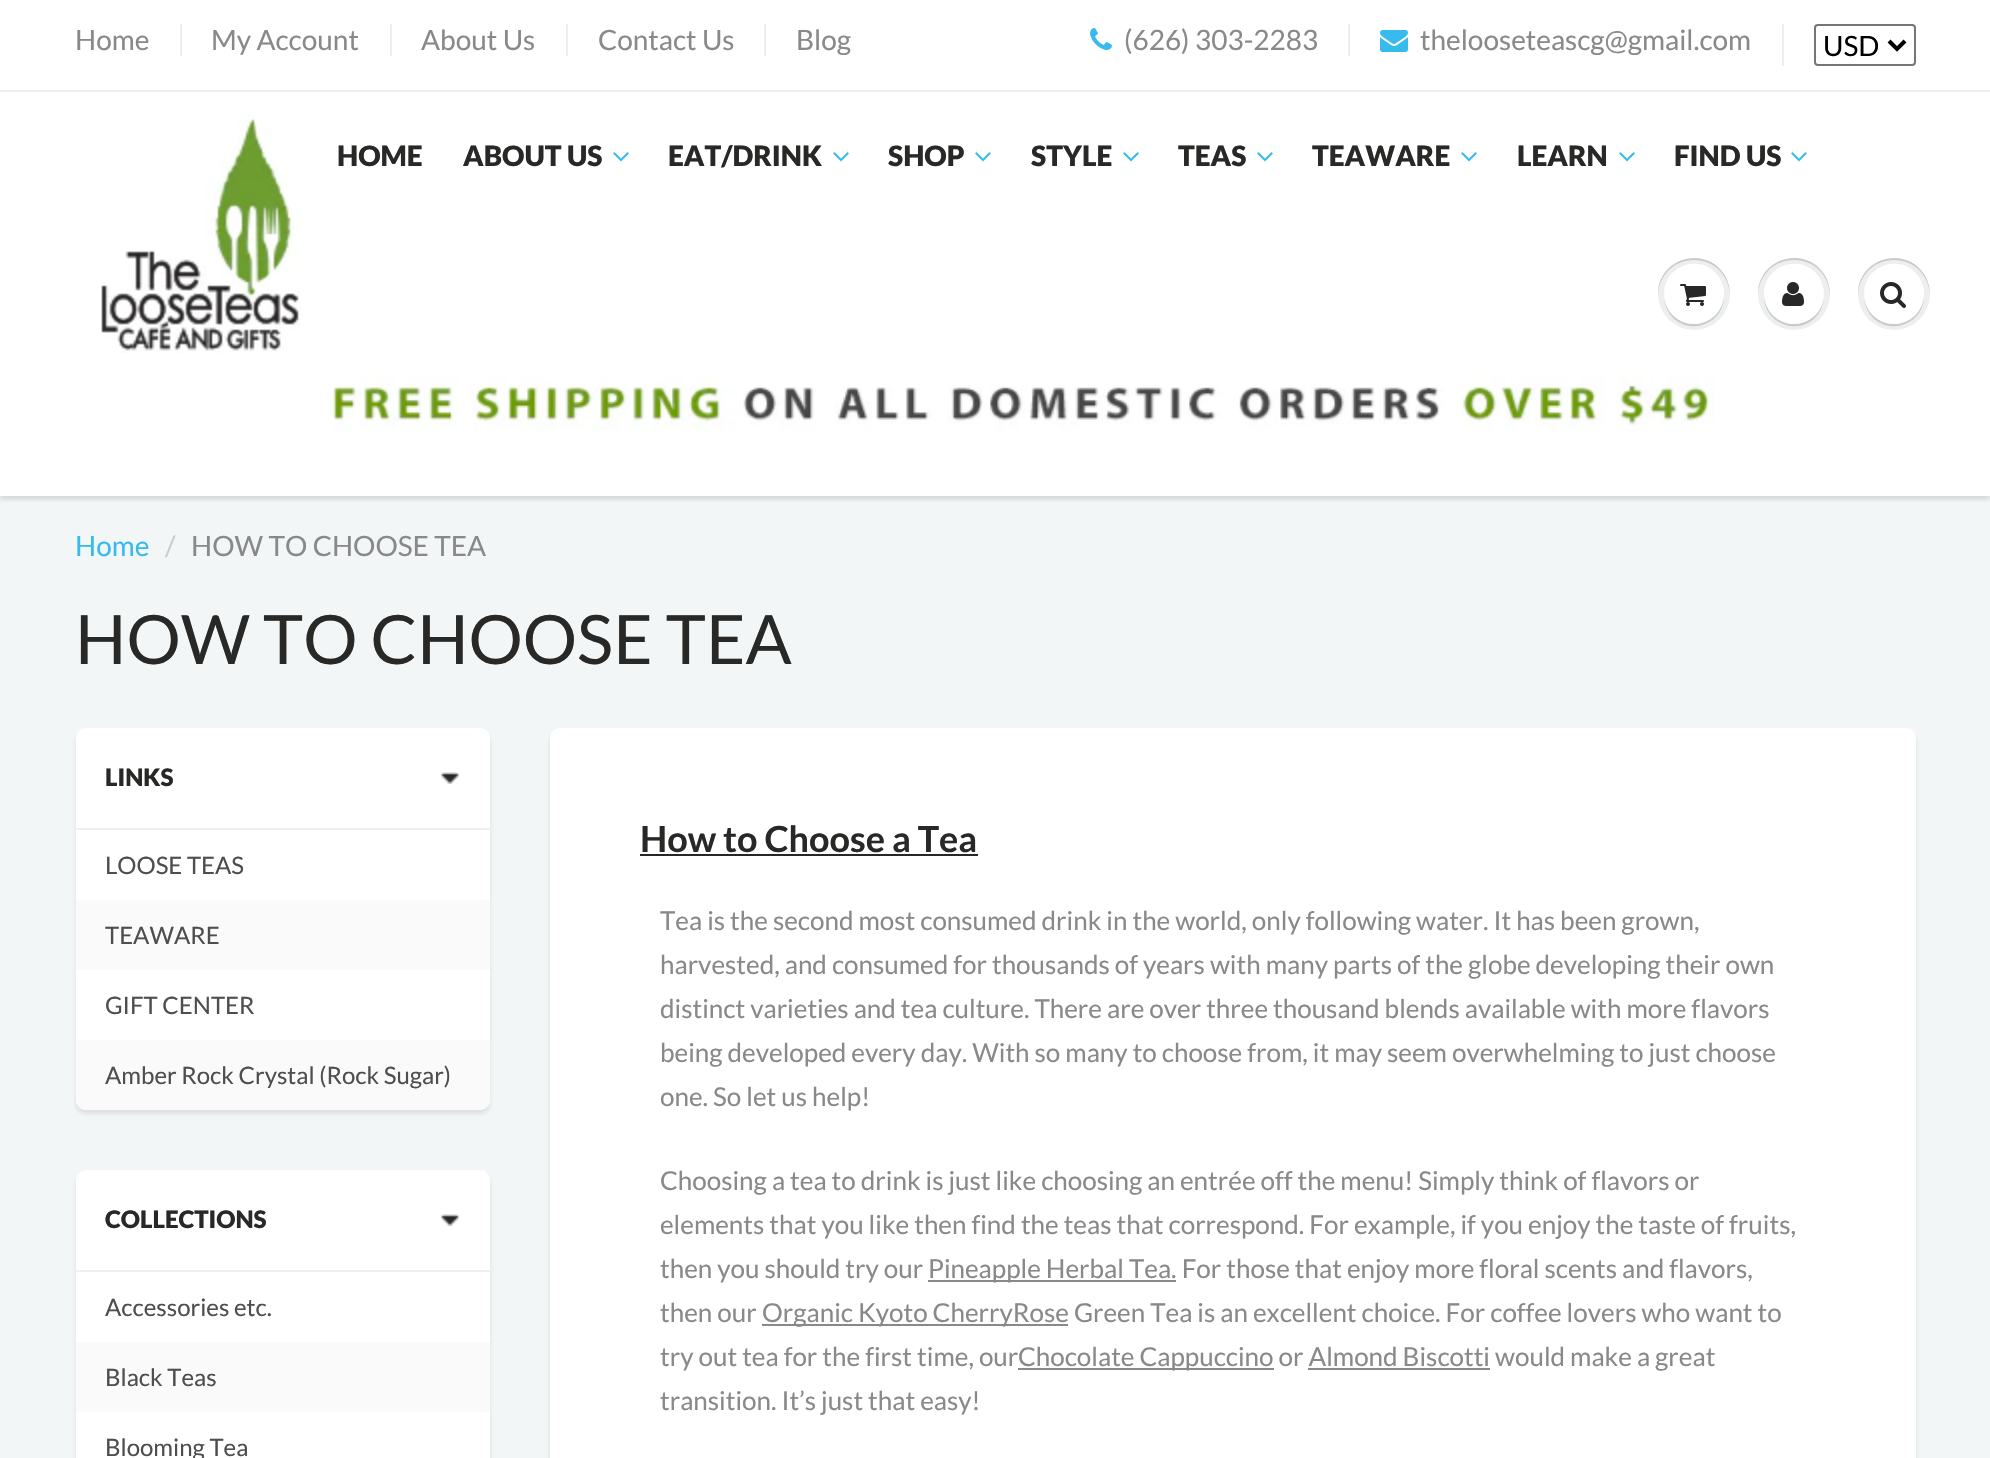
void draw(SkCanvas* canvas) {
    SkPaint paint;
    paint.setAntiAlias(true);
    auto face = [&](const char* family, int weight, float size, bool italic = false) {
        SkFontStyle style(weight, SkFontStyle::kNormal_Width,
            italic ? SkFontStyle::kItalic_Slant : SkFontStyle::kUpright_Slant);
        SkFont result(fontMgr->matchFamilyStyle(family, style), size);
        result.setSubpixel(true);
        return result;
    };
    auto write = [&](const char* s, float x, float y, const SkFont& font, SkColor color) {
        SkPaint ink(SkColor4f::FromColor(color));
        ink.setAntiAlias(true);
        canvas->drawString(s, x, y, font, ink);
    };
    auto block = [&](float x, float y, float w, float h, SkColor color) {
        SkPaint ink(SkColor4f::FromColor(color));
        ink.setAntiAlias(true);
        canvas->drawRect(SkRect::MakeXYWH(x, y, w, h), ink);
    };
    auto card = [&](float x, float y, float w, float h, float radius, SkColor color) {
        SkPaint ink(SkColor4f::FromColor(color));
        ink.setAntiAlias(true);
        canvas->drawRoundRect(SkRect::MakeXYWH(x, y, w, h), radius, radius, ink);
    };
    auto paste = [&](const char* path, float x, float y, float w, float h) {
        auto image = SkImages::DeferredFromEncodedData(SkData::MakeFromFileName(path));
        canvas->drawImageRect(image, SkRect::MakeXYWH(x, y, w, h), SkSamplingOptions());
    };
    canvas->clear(SK_ColorWHITE);
    auto kFont1 = face("Lato", 400, 28);
    write("Home", 75, 50, kFont1, SkColorSetRGB(137, 137, 137));
    block(180, 24, 2, 32, SkColorSetRGB(236, 239, 239));
    write("My Account", 211, 50, kFont1, SkColorSetRGB(137, 137, 137));
    block(390, 24, 2, 32, SkColorSetRGB(236, 239, 239));
    write("About Us", 421, 50, kFont1, SkColorSetRGB(137, 137, 137));
    block(566, 24, 2, 32, SkColorSetRGB(236, 239, 239));
    write("Contact Us", 598, 50, kFont1, SkColorSetRGB(137, 137, 137));
    block(764, 24, 2, 32, SkColorSetRGB(236, 239, 239));
    write("Blog", 796, 50, kFont1, SkColorSetRGB(137, 137, 137));
    paste("pic1.png", 1090, 28, 22, 22);
    write("(626) 303-2283", 1124, 50, kFont1, SkColorSetRGB(137, 137, 137));
    block(1348, 24, 2, 32, SkColorSetRGB(236, 239, 239));
    paste("pic2.png", 1380, 30, 28, 22);
    write("thelooseteascg@gmail.com", 1420, 50, kFont1, SkColorSetRGB(137, 137, 137));
    block(1782, 24, 2, 42, SkColorSetRGB(236, 239, 239));
    paint.setStyle(SkPaint::kStroke_Style);
    paint.setStrokeWidth(2);
    paint.setColor(SkColorSetRGB(118, 118, 118));
    canvas->drawRoundRect(SkRect::MakeXYWH(1815, 25, 100, 40), 3, 3, paint);
    paint.setStrokeWidth(4);
    paint.setColor(SK_ColorBLACK);
    canvas->drawPath(SkPathBuilder().moveTo(1889, 41).lineTo(1897, 49).lineTo(1905, 41).detach(), paint);
    write("USD", 1823, 56, kFont1, SK_ColorBLACK);
    paint.setStyle(SkPaint::kFill_Style);
    paint.setColor(SkColorSetRGB(237, 239, 239));
    canvas->drawCircle(1694, 294, 36, paint);
    paint.setColor(SkColorSetRGB(201, 203, 203));
    canvas->drawPath(SkPathBuilder().moveTo(1694, 260).cubicTo(1714, 260, 1729, 275, 1730, 295).cubicTo(1730, 288, 1728, 280, 1724, 274).cubicTo(1704, 244, 1657, 259, 1658, 295).cubicTo(1659, 275, 1674, 260, 1694, 260).close().detach(), paint);
    paint.setColor(SkColorSetRGB(237, 239, 239));
    canvas->drawCircle(1794, 294, 36, paint);
    paint.setColor(SkColorSetRGB(201, 203, 203));
    canvas->drawPath(SkPathBuilder().moveTo(1794, 260).cubicTo(1814, 260, 1829, 275, 1830, 295).cubicTo(1830, 288, 1828, 280, 1824, 274).cubicTo(1804, 244, 1757, 259, 1758, 295).cubicTo(1759, 275, 1774, 260, 1794, 260).close().detach(), paint);
    paint.setColor(SkColorSetRGB(237, 239, 239));
    canvas->drawCircle(1894, 294, 36, paint);
    paint.setColor(SkColorSetRGB(201, 203, 203));
    canvas->drawPath(SkPathBuilder().moveTo(1894, 260).cubicTo(1914, 260, 1929, 275, 1930, 295).cubicTo(1930, 288, 1928, 280, 1924, 274).cubicTo(1904, 244, 1857, 259, 1858, 295).cubicTo(1859, 275, 1874, 260, 1894, 260).close().detach(), paint);
    block(0, 496, 1990, 962, SkColorSetRGB(243, 246, 246));
    canvas->save();
    canvas->clipRect(SkRect::MakeXYWH(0, 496, 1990, 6));
    paint.setColor(SkColorSetARGB(31, 11, 25, 28));
    paint.setMaskFilter(SkMaskFilter::MakeBlur(kNormal_SkBlurStyle, 2));
    canvas->drawRect(SkRect::MakeXYWH(0, 94, 1990, 406), paint);
    paint.setMaskFilter(nullptr);
    canvas->restore();
    block(0, 90, 1990, 2, SkColorSetRGB(236, 239, 239));
    paste("pic3.png", 101, 114, 200, 239);
    auto kFont2 = face("Lato", 900, 28);
    write("HOME", 337, 166, kFont2, SkColorSetRGB(40, 40, 39));
    write("ABOUT US", 463, 166, kFont2, SkColorSetRGB(40, 40, 39));
    paste("pic4.png", 613, 152, 16, 10);
    write("EAT/DRINK", 668, 166, kFont2, SkColorSetRGB(40, 40, 39));
    paste("pic4.png", 833, 152, 16, 10);
    write("SHOP", 888, 166, kFont2, SkColorSetRGB(40, 40, 39));
    paste("pic4.png", 975, 152, 16, 10);
    write("STYLE", 1031, 166, kFont2, SkColorSetRGB(40, 40, 39));
    paste("pic4.png", 1123, 152, 16, 10);
    write("TEAS", 1178, 166, kFont2, SkColorSetRGB(40, 40, 39));
    paste("pic4.png", 1257, 152, 16, 10);
    write("TEAWARE", 1312, 166, kFont2, SkColorSetRGB(40, 40, 39));
    paste("pic4.png", 1461, 152, 16, 10);
    write("LEARN", 1517, 166, kFont2, SkColorSetRGB(40, 40, 39));
    paste("pic4.png", 1619, 152, 16, 10);
    write("FIND US", 1674, 166, kFont2, SkColorSetRGB(40, 40, 39));
    paste("pic4.png", 1791, 152, 16, 10);
    paint.setColor(SkColorSetRGB(201, 203, 203));
    canvas->drawPath(SkPathBuilder().moveTo(1724, 295).cubicTo(1723, 311, 1710, 324, 1694, 324).cubicTo(1678, 324, 1665, 311, 1664, 295).cubicTo(1664, 301, 1666, 308, 1669, 313).cubicTo(1686, 338, 1725, 325, 1724, 295).close().detach(), paint);
    paint.setColor(SK_ColorWHITE);
    canvas->drawCircle(1694, 294, 30, paint);
    canvas->drawPath(SkPathBuilder().moveTo(1694, 266).cubicTo(1711, 266, 1723, 278, 1724, 295).cubicTo(1724, 289, 1722, 282, 1719, 277).cubicTo(1702, 252, 1663, 265, 1664, 295).cubicTo(1665, 278, 1677, 266, 1694, 266).close().detach(), paint);
    paste("pic5.png", 1680, 284, 26, 22);
    paint.setColor(SkColorSetRGB(201, 203, 203));
    canvas->drawPath(SkPathBuilder().moveTo(1824, 295).cubicTo(1823, 311, 1810, 324, 1794, 324).cubicTo(1778, 324, 1765, 311, 1764, 295).cubicTo(1763, 325, 1802, 338, 1819, 313).cubicTo(1822, 308, 1824, 301, 1824, 295).close().detach(), paint);
    paint.setColor(SK_ColorWHITE);
    canvas->drawCircle(1794, 294, 30, paint);
    canvas->drawPath(SkPathBuilder().moveTo(1794, 266).cubicTo(1811, 266, 1823, 278, 1824, 295).cubicTo(1824, 289, 1822, 282, 1819, 277).cubicTo(1802, 252, 1763, 265, 1764, 295).cubicTo(1765, 278, 1777, 266, 1794, 266).close().detach(), paint);
    paste("pic6.png", 1782, 282, 22, 24);
    paint.setColor(SkColorSetRGB(201, 203, 203));
    canvas->drawPath(SkPathBuilder().moveTo(1924, 295).cubicTo(1923, 311, 1910, 324, 1894, 324).cubicTo(1878, 324, 1865, 311, 1864, 295).cubicTo(1864, 301, 1866, 308, 1869, 313).cubicTo(1886, 338, 1925, 325, 1924, 295).close().detach(), paint);
    paint.setColor(SK_ColorWHITE);
    canvas->drawCircle(1894, 294, 30, paint);
    canvas->drawPath(SkPathBuilder().moveTo(1894, 266).cubicTo(1911, 266, 1923, 278, 1924, 295).cubicTo(1924, 289, 1922, 282, 1919, 277).cubicTo(1902, 252, 1863, 265, 1864, 295).cubicTo(1865, 278, 1877, 266, 1894, 266).close().detach(), paint);
    paste("pic7.png", 1880, 282, 26, 26);
    paste("pic8.png", 333, 374, 1382, 57);
    write("Home", 75, 556, kFont1, SkColorSetRGB(55, 187, 236));
    write("/", 165, 556, kFont1, SkColorSetRGB(204, 204, 204));
    write("HOW TO CHOOSE TEA", 191, 556, kFont1, SkColorSetRGB(137, 137, 137));
    auto kFont3 = face("Lato", 400, 68);
    write("HOW TO CHOOSE TEA", 75, 664, kFont3, SkColorSetRGB(40, 40, 39));
    paint.setColor(SkColorSetARGB(26, 11, 25, 28));
    paint.setMaskFilter(SkMaskFilter::MakeBlur(kNormal_SkBlurStyle, 2));
    canvas->drawRoundRect(SkRect::MakeXYWH(76, 732, 414, 382), 10, 10, paint);
    paint.setMaskFilter(nullptr);
    card(76, 728, 414, 382, 10, SK_ColorWHITE);
    block(76, 828, 414, 2, SkColorSetRGB(239, 239, 239));
    paste("pic9.png", 440, 772, 20, 12);
    auto kFont4 = face("Lato", 900, 24);
    write("LINKS", 105, 786, kFont4, SkColorSetRGB(40, 40, 39));
    auto kFont5 = face("Lato", 400, 24);
    write("LOOSE TEAS", 105, 874, kFont5, SkColorSetRGB(78, 78, 78));
    block(76, 900, 414, 70, SkColorSetRGB(250, 250, 250));
    write("TEAWARE", 105, 944, kFont5, SkColorSetRGB(78, 78, 78));
    write("GIFT CENTER", 105, 1014, kFont5, SkColorSetRGB(78, 78, 78));
    paint.setColor(SkColorSetRGB(250, 250, 250));
    canvas->drawPath(SkPathBuilder().moveTo(76, 1040).lineTo(490, 1040).lineTo(490, 1100).cubicTo(490, 1105.5f, 485.5f, 1110, 480, 1110).lineTo(86, 1110).cubicTo(80.5f, 1110, 76, 1105.5f, 76, 1100).close().detach(), paint);
    write("Amber Rock Crystal (Rock Sugar)", 105, 1084, kFont5, SkColorSetRGB(78, 78, 78));
    paint.setColor(SkColorSetARGB(26, 11, 25, 28));
    paint.setMaskFilter(SkMaskFilter::MakeBlur(kNormal_SkBlurStyle, 2));
    canvas->drawRoundRect(SkRect::MakeXYWH(76, 1174, 414, 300), 10, 10, paint);
    paint.setMaskFilter(nullptr);
    card(76, 1170, 414, 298, 10, SK_ColorWHITE);
    block(76, 1270, 414, 2, SkColorSetRGB(239, 239, 239));
    paste("pic9.png", 440, 1214, 20, 12);
    write("COLLECTIONS", 105, 1228, kFont4, SkColorSetRGB(40, 40, 39));
    write("Accessories etc.", 105, 1316, kFont5, SkColorSetRGB(78, 78, 78));
    block(76, 1342, 414, 70, SkColorSetRGB(250, 250, 250));
    write("Black Teas", 105, 1386, kFont5, SkColorSetRGB(78, 78, 78));
    write("Blooming Tea", 105, 1456, kFont5, SkColorSetRGB(78, 78, 78));
    paint.setMaskFilter(SkMaskFilter::MakeBlur(kNormal_SkBlurStyle, 2));
    canvas->drawRoundRect(SkRect::MakeXYWH(550, 732, 1366, 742), 10, 10, paint);
    paint.setMaskFilter(nullptr);
    card(550, 728, 1366, 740, 10, SK_ColorWHITE);
    auto kFont6 = face("Lato", 700, 36);
    write("How to Choose a Tea", 640, 852, kFont6, SkColorSetRGB(40, 40, 39));
    block(640, 854, 338, 2, SkColorSetRGB(40, 39, 39));
    auto kFont7 = face("Lato", 400, 26);
    write("Tea is the second most consumed drink in the world, only following water. It has been grown,", 660, 930, kFont7, SkColorSetRGB(137, 137, 137));
    write("harvested, and consumed for thousands of years with many parts of the globe developing their own", 660, 974, kFont7, SkColorSetRGB(137, 137, 137));
    write("distinct varieties and tea culture. There are over three thousand blends available with more flavors", 660, 1018, kFont7, SkColorSetRGB(137, 137, 137));
    write("being developed every day. With so many to choose from, it may seem overwhelming to just choose", 660, 1062, kFont7, SkColorSetRGB(137, 137, 137));
    write("one. So let us help!", 660, 1106, kFont7, SkColorSetRGB(137, 137, 137));
    write("Choosing a tea to drink is just like choosing an entrée off the menu! Simply think of flavors or", 660, 1190, kFont7, SkColorSetRGB(137, 137, 137));
    write("elements that you like then find the teas that correspond. For example, if you enjoy the taste of fruits,", 660, 1234, kFont7, SkColorSetRGB(137, 137, 137));
    write("then you should try our", 660, 1278, kFont7, SkColorSetRGB(137, 137, 137));
    block(928, 1280, 248, 2, SkColorSetRGB(137, 137, 137));
    write("Pineapple Herbal Tea. For those that enjoy more floral scents and flavors,", 928, 1278, kFont7, SkColorSetRGB(137, 137, 137));
    write("then our", 660, 1322, kFont7, SkColorSetRGB(137, 137, 137));
    block(762, 1324, 250, 2, SkColorSetRGB(137, 137, 137));
    write("Organic Kyoto CherryRose Green Tea is an excellent choice. For coffee lovers who want to", 762, 1322, kFont7, SkColorSetRGB(137, 137, 137));
    block(1012, 1324, 56, 2, SkColorSetRGB(137, 137, 137));
    write("try out tea for the first time, our", 660, 1366, kFont7, SkColorSetRGB(137, 137, 137));
    block(1018, 1368, 256, 2, SkColorSetRGB(137, 137, 137));
    write("Chocolate Cappuccino or Almond Biscotti would make a great", 1018, 1366, kFont7, SkColorSetRGB(137, 137, 137));
    block(1308, 1368, 182, 2, SkColorSetRGB(137, 137, 137));
    write("transition. It’s just that easy!", 660, 1410, kFont7, SkColorSetRGB(137, 137, 137));
}
